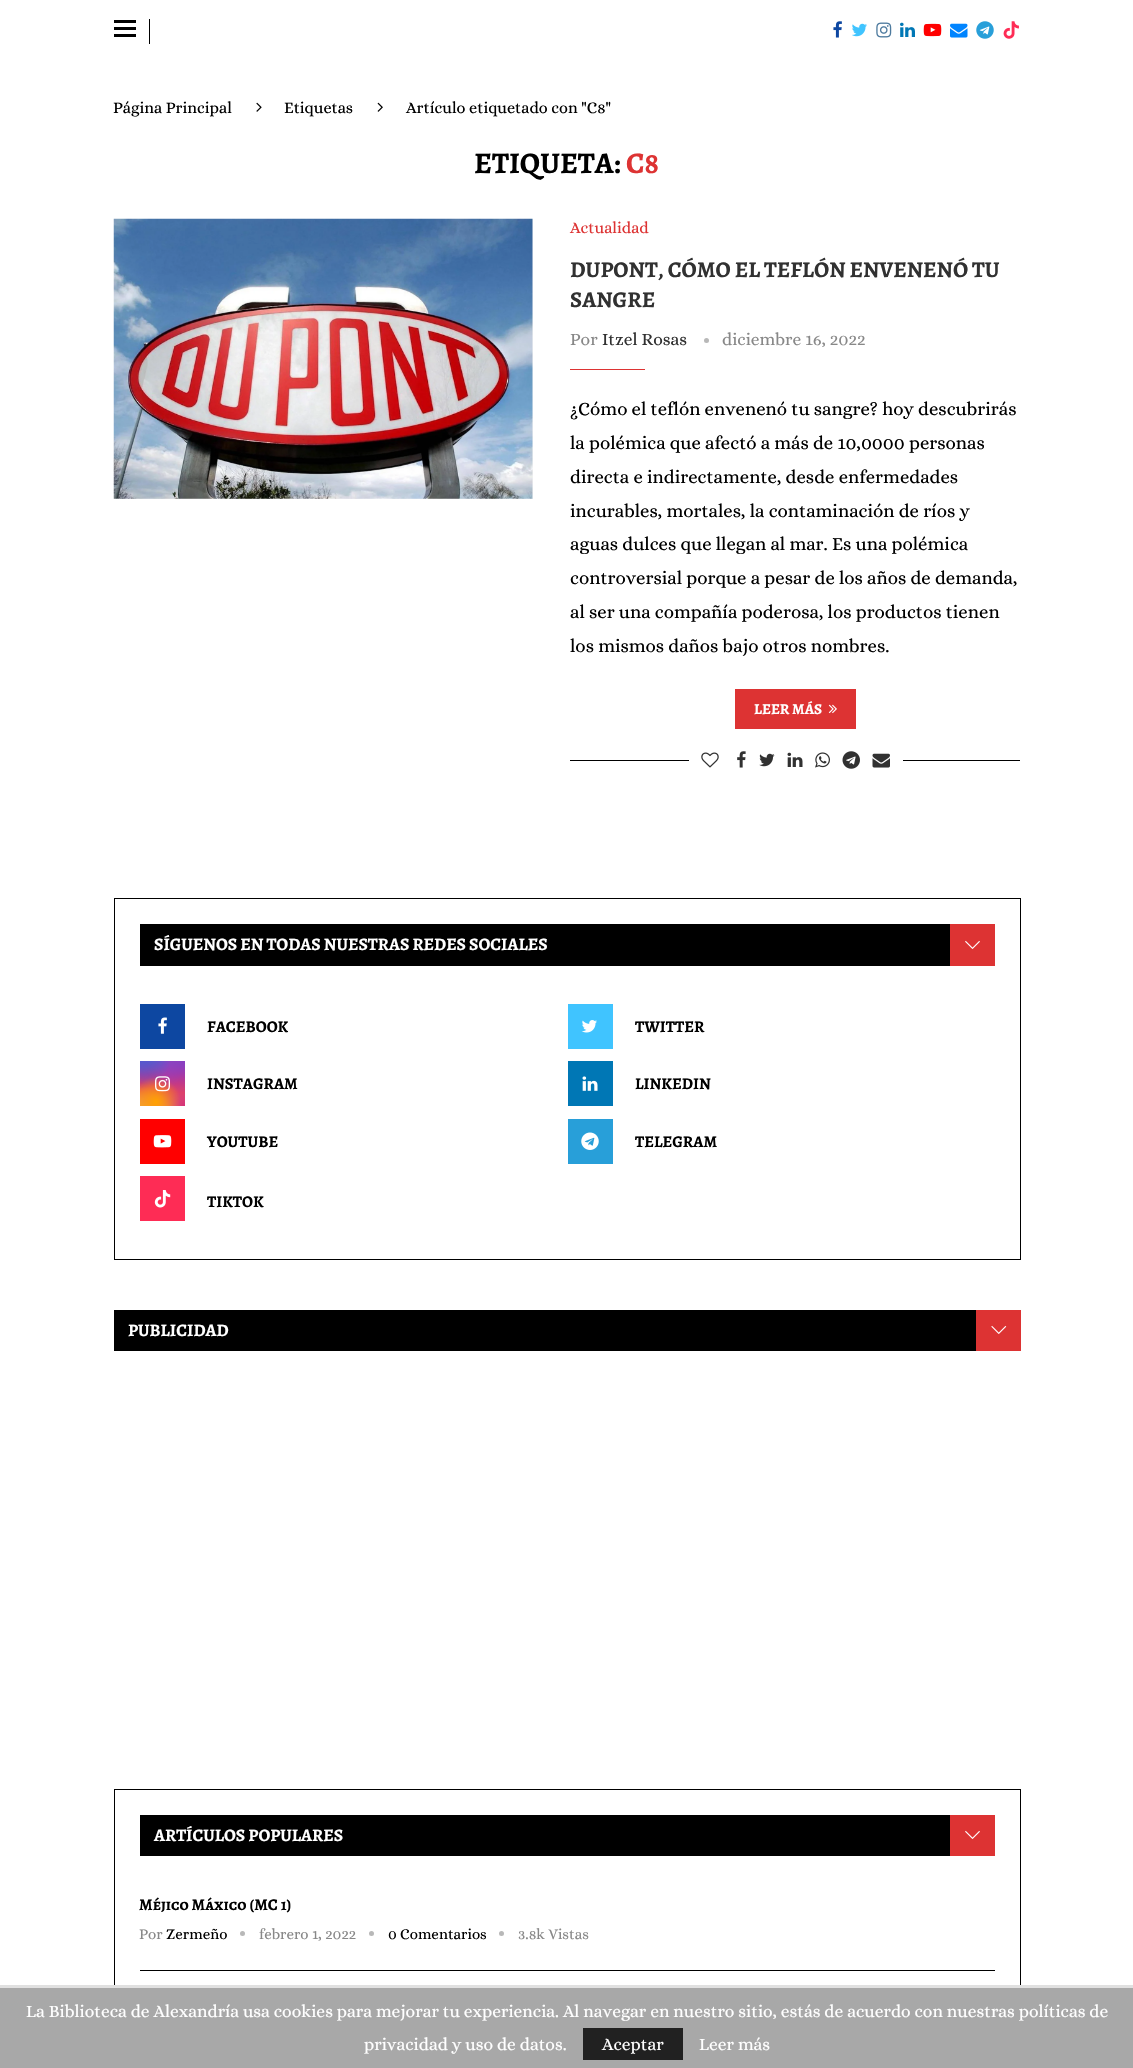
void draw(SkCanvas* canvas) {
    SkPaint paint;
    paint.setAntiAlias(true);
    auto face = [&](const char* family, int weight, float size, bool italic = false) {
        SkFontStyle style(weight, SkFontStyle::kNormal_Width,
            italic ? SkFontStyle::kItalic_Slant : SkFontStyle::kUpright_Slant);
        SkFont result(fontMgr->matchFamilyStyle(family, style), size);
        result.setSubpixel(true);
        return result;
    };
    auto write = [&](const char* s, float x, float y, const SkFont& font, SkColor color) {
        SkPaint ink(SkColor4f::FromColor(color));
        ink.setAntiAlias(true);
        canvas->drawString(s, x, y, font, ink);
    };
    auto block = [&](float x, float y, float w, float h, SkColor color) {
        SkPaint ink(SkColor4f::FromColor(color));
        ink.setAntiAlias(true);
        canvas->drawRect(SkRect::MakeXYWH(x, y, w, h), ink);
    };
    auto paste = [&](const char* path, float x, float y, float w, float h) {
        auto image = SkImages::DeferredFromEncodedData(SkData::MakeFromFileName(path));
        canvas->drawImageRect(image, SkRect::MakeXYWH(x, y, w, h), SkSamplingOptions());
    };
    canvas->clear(SK_ColorWHITE);
    block(114, 20, 22, 3, SK_ColorBLACK);
    block(114, 27, 22, 3, SK_ColorBLACK);
    block(114, 34, 22, 3, SK_ColorBLACK);
    block(149, 19, 1, 25, SK_ColorBLACK);
    paste("pic1.png", 833, 21, 9, 17);
    paste("pic2.png", 852, 23, 15, 14);
    paste("pic3.png", 876, 22, 16, 16);
    paste("pic4.png", 900, 22, 15, 15);
    paste("pic5.png", 923, 23, 19, 14);
    paste("pic6.png", 950, 23, 18, 15);
    paste("pic7.png", 976, 21, 18, 18);
    paste("pic8.png", 1003, 21, 16, 18);
    auto kFont1 = face("Alice", 400, 16.25f);
    write("Página Principal", 113, 113, kFont1, SK_ColorBLACK);
    paste("pic9.png", 256, 102, 6, 10);
    write("Etiquetas", 284, 113, kFont1, SK_ColorBLACK);
    paste("pic10.png", 377, 102, 6, 10);
    write("Artículo etiquetado con \"C8\"", 406, 113, kFont1, SK_ColorBLACK);
    auto kFont2 = face("Alegreya SC", 700, 30);
    write("ETIQUETA:", 474, 173, kFont2, SK_ColorBLACK);
    write("C8", 626, 173, kFont2, SkColorSetRGB(221, 51, 51));
    block(114, 219, 419, 280, SkColorSetRGB(245, 245, 245));
    paste("pic11.png", 113, 218, 420, 281);
    write("Actualidad", 570, 233, kFont1, SkColorSetRGB(221, 51, 51));
    auto kFont3 = face("Alegreya SC", 700, 22.5f);
    write("DUPONT, CÓMO EL TEFLÓN ENVENENÓ TU", 570, 277, kFont3, SkColorSetRGB(49, 49, 49));
    write("SANGRE", 570, 307, kFont3, SkColorSetRGB(49, 49, 49));
    auto kFont4 = face("Alice", 400, 17.5f);
    write("Por", 570, 345, kFont4, SkColorSetRGB(136, 136, 136));
    write("Itzel Rosas", 602, 345, kFont4, SkColorSetRGB(49, 49, 49));
    paint.setColor(SkColorSetRGB(184, 184, 184));
    canvas->drawCircle(706.5f, 340.5f, 2.5f, paint);
    write("diciembre 16, 2022", 722, 345, kFont4, SkColorSetRGB(136, 136, 136));
    block(570, 369, 75, 1, SkColorSetRGB(221, 51, 51));
    auto kFont5 = face("Alice", 400, 18.75f);
    write("¿Cómo el teflón envenenó tu sangre? hoy descubrirás", 570, 415, kFont5, SK_ColorBLACK);
    write("la polémica que afectó a más de 10,0000 personas", 570, 449, kFont5, SK_ColorBLACK);
    write("directa e indirectamente, desde enfermedades", 570, 483, kFont5, SK_ColorBLACK);
    write("incurables, mortales, la contaminación de ríos y", 570, 517, kFont5, SK_ColorBLACK);
    write("aguas dulces que llegan al mar. Es una polémica", 570, 550, kFont5, SK_ColorBLACK);
    write("controversial porque a pesar de los años de demanda,", 570, 584, kFont5, SK_ColorBLACK);
    write("al ser una compañía poderosa, los productos tienen", 570, 618, kFont5, SK_ColorBLACK);
    write("los mismos daños bajo otros nombres.", 570, 652, kFont5, SK_ColorBLACK);
    block(735, 689, 121, 40, SkColorSetRGB(221, 51, 51));
    auto kFont6 = face("Alegreya SC", 700, 15);
    write("LEER MÁS", 754, 714, kFont6, SK_ColorWHITE);
    paste("pic12.png", 828, 704, 9, 10);
    block(570, 760, 450, 1, SK_ColorBLACK);
    block(689, 760, 214, 1, SK_ColorWHITE);
    paste("pic13.png", 701, 752, 18, 16);
    paste("pic14.png", 737, 751, 9, 17);
    paste("pic15.png", 759, 753, 16, 14);
    paste("pic16.png", 787, 752, 16, 15);
    paste("pic17.png", 815, 752, 15, 16);
    paste("pic18.png", 842, 751, 18, 18);
    paste("pic19.png", 872, 753, 18, 15);
    paint.setStyle(SkPaint::kStroke_Style);
    paint.setStrokeWidth(1);
    paint.setColor(SK_ColorBLACK);
    canvas->drawRect(SkRect::MakeXYWH(114.5f, 898.5f, 906, 361), paint);
    block(140, 924, 810, 42, SK_ColorBLACK);
    auto kFont7 = face("Alegreya SC", 700, 17.5f);
    write("SÍGUENOS EN TODAS NUESTRAS REDES SOCIALES", 154, 950, kFont7, SK_ColorWHITE);
    block(950, 924, 45, 42, SkColorSetRGB(221, 51, 51));
    paste("pic20.png", 965, 940, 15, 9);
    block(140, 1004, 45, 45, SkColorSetRGB(13, 71, 161));
    paste("pic21.png", 158, 1017, 9, 17);
    auto kFont8 = face("Alegreya SC", 700, 16.25f);
    write("FACEBOOK", 207, 1032, kFont8, SK_ColorBLACK);
    block(568, 1004, 45, 45, SkColorSetRGB(64, 196, 255));
    paste("pic22.png", 581, 1020, 16, 13);
    write("TWITTER", 635, 1032, kFont8, SK_ColorBLACK);
    paint.setStyle(SkPaint::kFill_Style);
    {
        const SkColor colors[] = {SkColorSetRGB(101, 89, 202), SkColorSetRGB(188, 49, 143), SkColorSetRGB(227, 63, 95), SkColorSetRGB(247, 118, 56), SkColorSetRGB(254, 198, 109)};
        const float stops[] = {0, 0.3f, 0.5f, 0.7f, 1};
        const SkPoint ends[] = {{163, 1061}, {163, 1106}};
        paint.setShader(SkGradientShader::MakeLinear(ends, colors, stops, 5, SkTileMode::kClamp));
        paint.setAlpha(255);
    }
    canvas->drawRect(SkRect::MakeXYWH(140, 1061, 45, 45), paint);
    {
        const SkColor colors[] = {SkColorSetRGB(212, 49, 120), SkColorSetARGB(0, 212, 49, 120)};
        const float stops[] = {0, 1};
        paint.setShader(SkGradientShader::MakeRadial({185, 1106}, 64, colors, stops, 2, SkTileMode::kClamp));
        paint.setAlpha(255);
    }
    canvas->drawRect(SkRect::MakeXYWH(140, 1061, 45, 45), paint);
    {
        const SkColor colors[] = {SkColorSetRGB(143, 68, 199), SkColorSetARGB(0, 143, 68, 199)};
        const float stops[] = {0, 0.5f};
        SkMatrix m = SkMatrix::Translate(167, 1052).preScale(38, 76);
        paint.setShader(SkGradientShader::MakeRadial({0, 0}, 1, colors, stops, 2, SkTileMode::kClamp, 0, &m));
        paint.setAlpha(255);
    }
    canvas->drawRect(SkRect::MakeXYWH(151, 1061, 33, 28), paint);
    {
        const SkColor colors[] = {SkColorSetRGB(137, 61, 194), SkColorSetARGB(0, 137, 61, 194)};
        const float stops[] = {0, 0.5f};
        paint.setShader(SkGradientShader::MakeRadial({185, 1061}, 64, colors, stops, 2, SkTileMode::kClamp));
        paint.setAlpha(255);
    }
    canvas->drawRect(SkRect::MakeXYWH(157, 1061, 28, 31), paint);
    {
        const SkColor colors[] = {SkColorSetRGB(82, 88, 207), SkColorSetARGB(0, 82, 88, 207)};
        const float stops[] = {0, 0.5f};
        SkMatrix m = SkMatrix::Translate(149, 1039).preScale(51, 95);
        paint.setShader(SkGradientShader::MakeRadial({0, 0}, 1, colors, stops, 2, SkTileMode::kClamp, 0, &m));
        paint.setAlpha(255);
    }
    canvas->drawRect(SkRect::MakeXYWH(140, 1061, 30, 24), paint);
    {
        const SkColor colors[] = {SkColorSetRGB(82, 88, 207), SkColorSetARGB(0, 82, 88, 207)};
        const float stops[] = {0, 0.5f};
        SkMatrix m = SkMatrix::Translate(140, 1050).preScale(64, 80);
        paint.setShader(SkGradientShader::MakeRadial({0, 0}, 1, colors, stops, 2, SkTileMode::kClamp, 0, &m));
        paint.setAlpha(255);
    }
    canvas->drawRect(SkRect::MakeXYWH(140, 1061, 29, 28), paint);
    {
        const SkColor colors[] = {SkColorSetRGB(239, 161, 28), SkColorSetARGB(0, 239, 161, 28)};
        const float stops[] = {0, 0.5f};
        paint.setShader(SkGradientShader::MakeRadial({140, 1124}, 77, colors, stops, 2, SkTileMode::kClamp));
        paint.setAlpha(255);
    }
    canvas->drawRect(SkRect::MakeXYWH(140, 1087, 33, 19), paint);
    {
        const SkColor colors[] = {SkColorSetRGB(255, 161, 0), SkColorSetARGB(0, 255, 161, 0)};
        const float stops[] = {0, 0.5f};
        paint.setShader(SkGradientShader::MakeRadial({156, 1102}, 50, colors, stops, 2, SkTileMode::kClamp));
        paint.setAlpha(255);
    }
    canvas->drawRect(SkRect::MakeXYWH(140, 1078, 40, 28), paint);
    paste("pic23.png", 155, 1076, 15, 16);
    write("INSTAGRAM", 207, 1089, kFont8, SK_ColorBLACK);
    block(568, 1061, 45, 45, SkColorSetRGB(0, 119, 181));
    paste("pic24.png", 582, 1076, 16, 15);
    write("LINKEDIN", 635, 1089, kFont8, SK_ColorBLACK);
    block(140, 1119, 45, 45, SkColorSetRGB(255, 0, 0));
    paste("pic25.png", 153, 1135, 19, 13);
    write("YOUTUBE", 207, 1147, kFont8, SK_ColorBLACK);
    block(568, 1119, 45, 45, SkColorSetRGB(40, 159, 217));
    paste("pic26.png", 581, 1132, 18, 18);
    write("TELEGRAM", 635, 1147, kFont8, SK_ColorBLACK);
    block(140, 1176, 45, 45, SkColorSetRGB(254, 44, 85));
    paste("pic27.png", 154, 1190, 17, 18);
    write("TIKTOK", 207, 1207, kFont8, SK_ColorBLACK);
    block(114, 1310, 862, 41, SK_ColorBLACK);
    write("PUBLICIDAD", 128, 1336, kFont7, SK_ColorWHITE);
    block(976, 1310, 45, 41, SkColorSetRGB(221, 51, 51));
    paste("pic28.png", 991, 1325, 16, 9);
    paint.setStyle(SkPaint::kStroke_Style);
    paint.setShader(nullptr);
    paint.setColor(SK_ColorBLACK);
    canvas->drawRect(SkRect::MakeXYWH(114.5f, 1789.5f, 906, 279), paint);
    block(140, 1815, 810, 41, SK_ColorBLACK);
    write("ARTÍCULOS POPULARES", 154, 1841, kFont7, SK_ColorWHITE);
    block(950, 1815, 45, 41, SkColorSetRGB(221, 51, 51));
    paste("pic20.png", 965, 1830, 15, 9);
    block(140, 1970, 855, 1, SK_ColorBLACK);
    write("Méjico Máxico (MC 1)", 139, 1910, kFont8, SK_ColorBLACK);
    auto kFont9 = face("Alice", 400, 15);
    write("Por", 139, 1939, kFont9, SkColorSetRGB(136, 136, 136));
    write("Zermeño", 166, 1939, kFont9, SK_ColorBLACK);
    paint.setStyle(SkPaint::kFill_Style);
    paint.setColor(SkColorSetRGB(184, 184, 184));
    canvas->drawCircle(242.5f, 1933.5f, 2.5f, paint);
    write("febrero 1, 2022", 259, 1939, kFont9, SkColorSetRGB(136, 136, 136));
    canvas->drawCircle(371.5f, 1933.5f, 2.5f, paint);
    write("0 Comentarios", 388, 1939, kFont9, SK_ColorBLACK);
    canvas->drawCircle(501.5f, 1933.5f, 2.5f, paint);
    write("3.8k Vistas", 518, 1939, kFont9, SkColorSetRGB(136, 136, 136));
    block(0, 1988, 1133, 80, SkColorSetRGB(168, 168, 168));
    block(0, 1985, 1133, 3, SkColorSetRGB(224, 224, 224));
    write("La Biblioteca de Alexandría usa cookies para mejorar tu experiencia. Al navegar en nuestro sitio, estás de acuerdo con nuestras políticas de", 26, 2017, kFont4, SK_ColorWHITE);
    write("privacidad y uso de datos.", 364, 2050, kFont4, SK_ColorWHITE);
    block(583, 2028, 100, 32, SkColorSetRGB(33, 33, 33));
    write("Aceptar", 602, 2050, kFont4, SK_ColorWHITE);
    write("Leer más", 699, 2050, kFont4, SK_ColorWHITE);
}
